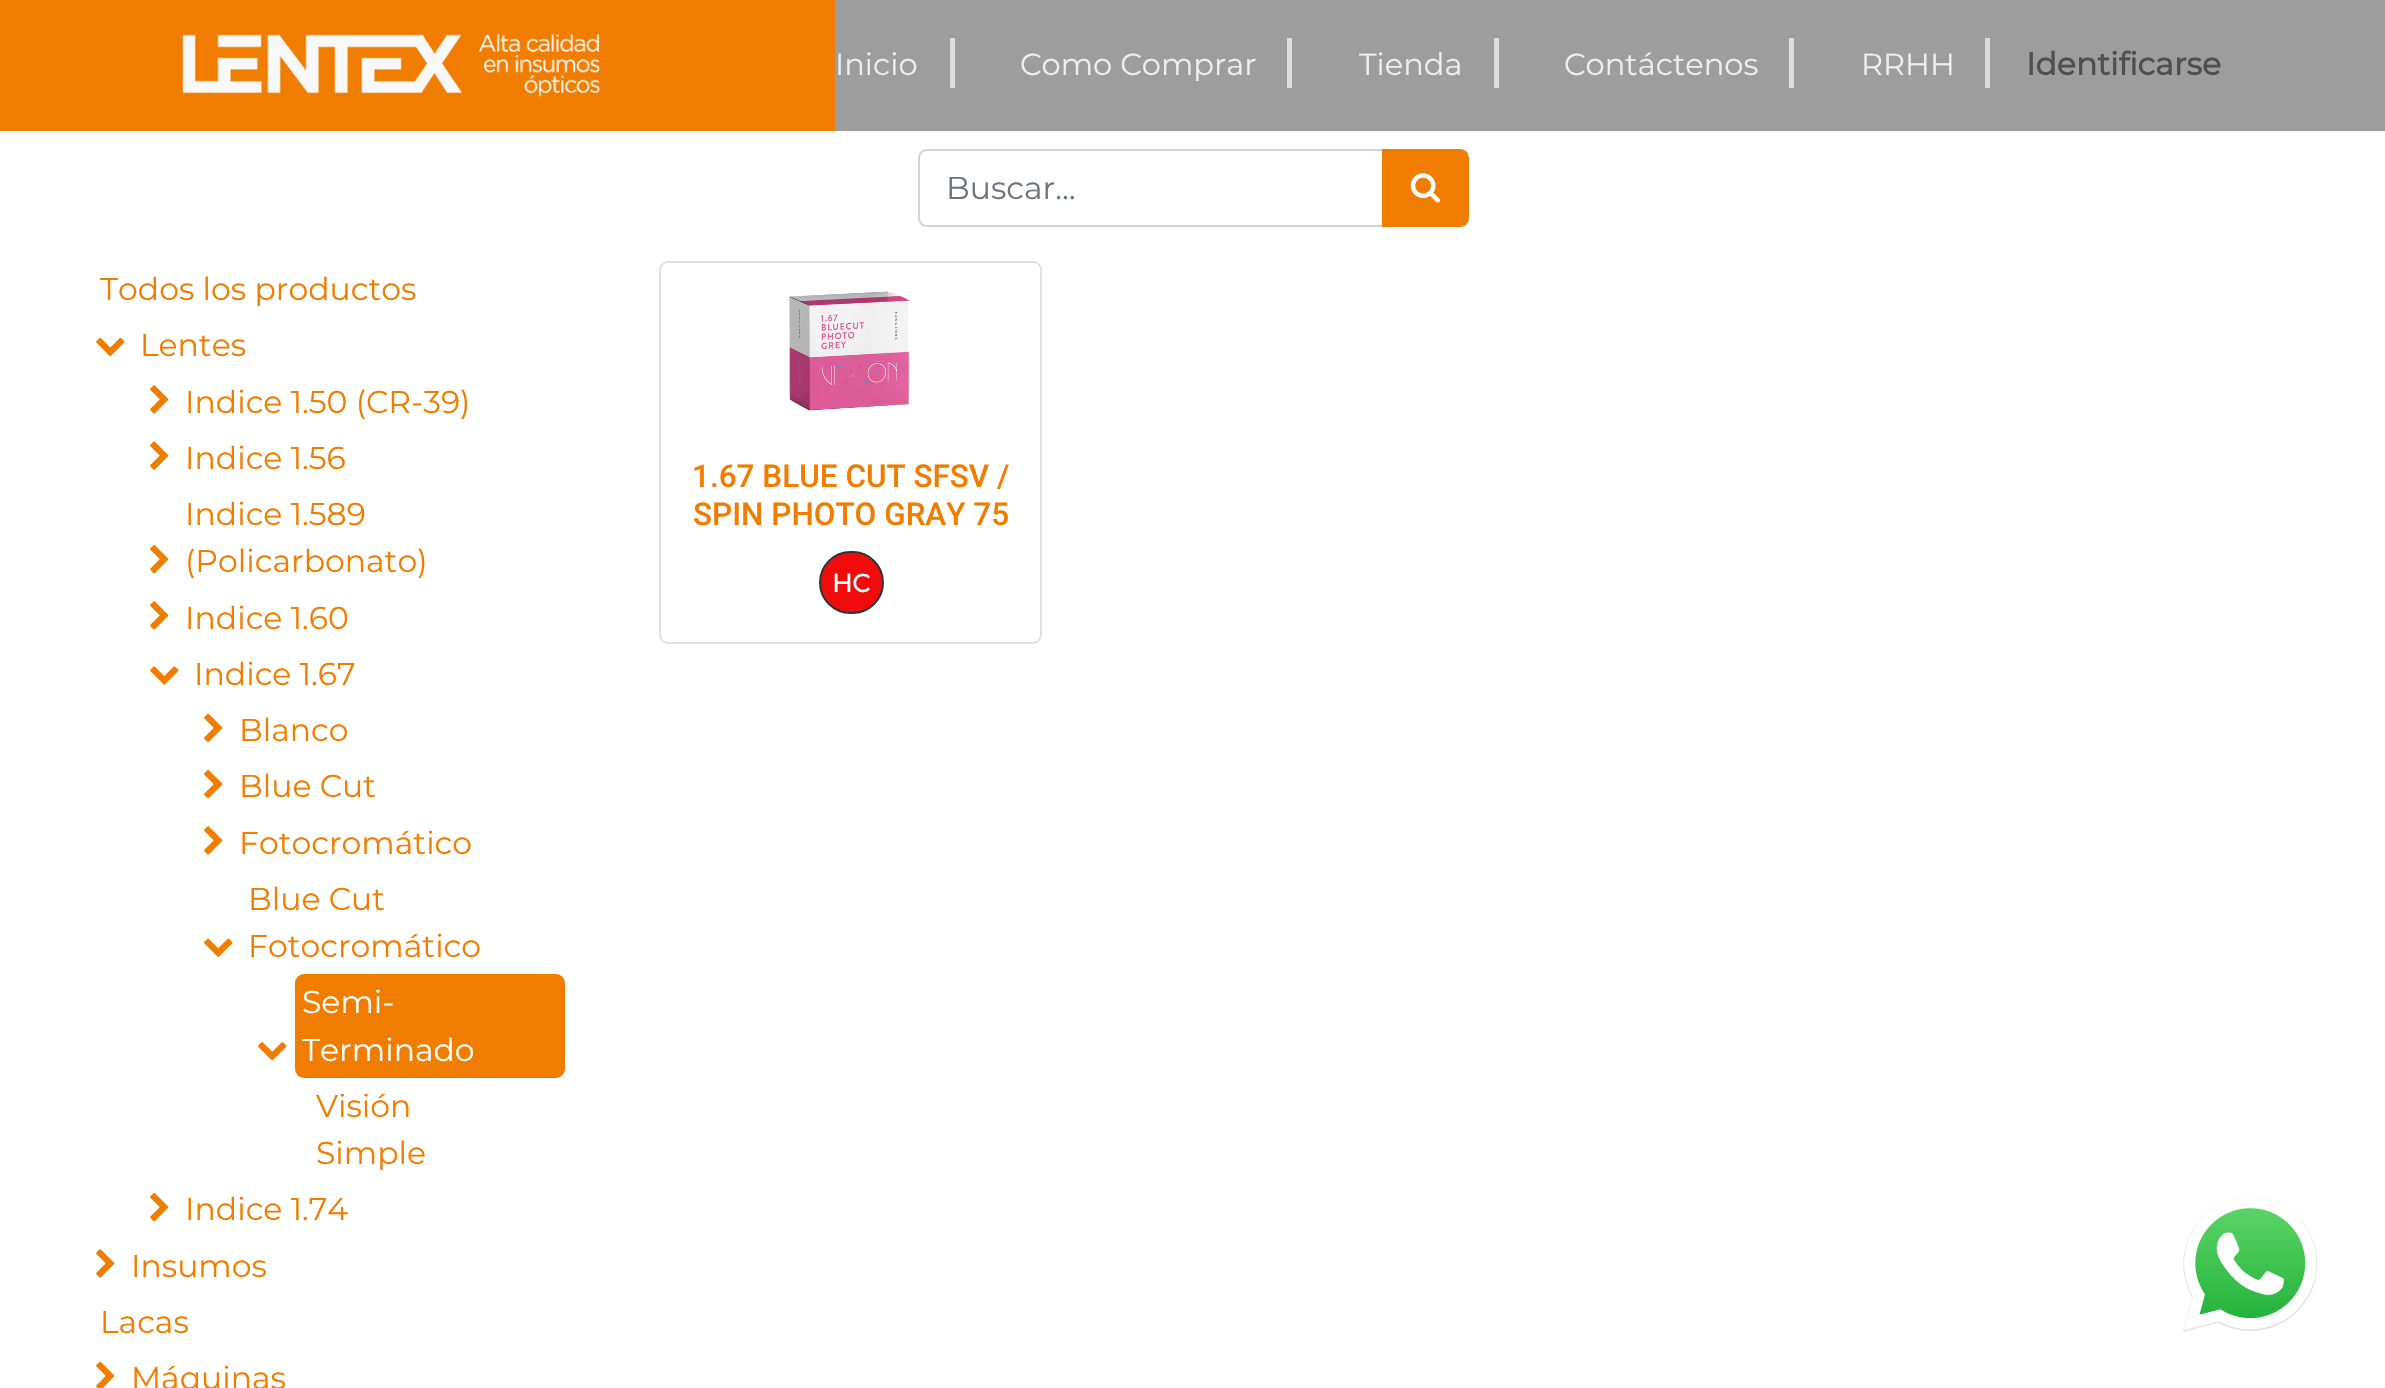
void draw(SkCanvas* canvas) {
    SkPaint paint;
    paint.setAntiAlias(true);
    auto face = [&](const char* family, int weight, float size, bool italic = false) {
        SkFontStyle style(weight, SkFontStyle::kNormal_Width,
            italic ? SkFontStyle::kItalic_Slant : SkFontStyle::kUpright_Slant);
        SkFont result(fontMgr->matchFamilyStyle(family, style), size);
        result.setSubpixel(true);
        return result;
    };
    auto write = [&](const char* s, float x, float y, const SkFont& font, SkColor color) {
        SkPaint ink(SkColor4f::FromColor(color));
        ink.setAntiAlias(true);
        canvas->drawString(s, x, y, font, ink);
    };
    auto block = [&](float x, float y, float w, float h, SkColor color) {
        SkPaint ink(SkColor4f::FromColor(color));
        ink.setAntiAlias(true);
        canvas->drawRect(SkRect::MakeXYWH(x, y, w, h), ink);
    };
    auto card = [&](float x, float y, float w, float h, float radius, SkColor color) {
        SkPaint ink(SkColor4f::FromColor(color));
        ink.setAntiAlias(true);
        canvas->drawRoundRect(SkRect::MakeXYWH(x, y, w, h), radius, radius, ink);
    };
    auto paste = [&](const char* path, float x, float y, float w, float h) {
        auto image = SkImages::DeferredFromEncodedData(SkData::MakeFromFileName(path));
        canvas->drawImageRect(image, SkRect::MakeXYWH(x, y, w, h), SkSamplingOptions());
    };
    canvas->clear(SK_ColorWHITE);
    block(835, 0, 1550, 131, SkColorSetRGB(157, 157, 157));
    block(0, 0, 835, 131, SkColorSetRGB(240, 125, 0));
    paste("pic1.png", 182, 34, 418, 63);
    auto kFont1 = face("Montserrat", 100, 30.5f);
    write("Inicio", 835, 75, kFont1, SkColorSetRGB(238, 238, 238));
    block(950, 38, 5, 50, SkColorSetRGB(221, 221, 221));
    write("Como Comprar", 1020, 75, kFont1, SkColorSetRGB(238, 238, 238));
    block(1287, 38, 5, 50, SkColorSetRGB(221, 221, 221));
    write("Tienda", 1359, 75, kFont1, SkColorSetRGB(238, 238, 238));
    block(1494, 38, 5, 50, SkColorSetRGB(221, 221, 221));
    write("Contáctenos", 1564, 75, kFont1, SkColorSetRGB(238, 238, 238));
    block(1789, 38, 5, 50, SkColorSetRGB(221, 221, 221));
    write("RRHH", 1861, 75, kFont1, SkColorSetRGB(238, 238, 238));
    block(1985, 38, 5, 50, SkColorSetRGB(221, 221, 221));
    auto kFont2 = face("Montserrat", 700, 31.5f);
    write("Identificarse", 2026, 75, kFont2, SkColorSetRGB(79, 79, 79));
    paint.setStyle(SkPaint::kStroke_Style);
    paint.setStrokeWidth(2);
    paint.setColor(SkColorSetRGB(206, 212, 218));
    canvas->drawPath(SkPathBuilder().moveTo(927, 150).lineTo(1383, 150).lineTo(1383, 226).lineTo(927, 226).cubicTo(922.5f, 226, 919, 222.5f, 919, 218).lineTo(919, 158).cubicTo(919, 153.5f, 922.5f, 150, 927, 150).close().detach(), paint);
    auto kFont3 = face("Montserrat", 100, 31.5f);
    write("Buscar…", 946, 199, kFont3, SkColorSetRGB(108, 117, 125));
    paint.setStyle(SkPaint::kFill_Style);
    paint.setColor(SkColorSetRGB(240, 125, 0));
    canvas->drawPath(SkPathBuilder().moveTo(1383, 150).lineTo(1460, 150).cubicTo(1464.5f, 150, 1468, 153.5f, 1468, 158).lineTo(1468, 218).cubicTo(1468, 222.5f, 1464.5f, 226, 1460, 226).lineTo(1383, 226).close().detach(), paint);
    paint.setStyle(SkPaint::kStroke_Style);
    canvas->drawPath(SkPathBuilder().moveTo(1383, 150).lineTo(1460, 150).cubicTo(1464.5f, 150, 1468, 153.5f, 1468, 158).lineTo(1468, 218).cubicTo(1468, 222.5f, 1464.5f, 226, 1460, 226).lineTo(1383, 226).close().detach(), paint);
    paste("pic2.png", 1410, 173, 30, 30);
    write("Todos los productos", 100, 300, kFont3, SkColorSetRGB(240, 125, 0));
    paste("pic3.png", 96, 337, 29, 19);
    write("Lentes", 140, 356, kFont3, SkColorSetRGB(240, 125, 0));
    paste("pic4.png", 150, 385, 19, 29);
    write("Indice 1.50 (CR-39)", 185, 413, kFont3, SkColorSetRGB(240, 125, 0));
    paste("pic5.png", 150, 441, 19, 29);
    write("Indice 1.56", 185, 469, kFont3, SkColorSetRGB(240, 125, 0));
    paste("pic6.png", 150, 545, 19, 29);
    write("Indice 1.589", 185, 525, kFont3, SkColorSetRGB(240, 125, 0));
    write("(Policarbonato)", 185, 572, kFont3, SkColorSetRGB(240, 125, 0));
    paste("pic4.png", 150, 601, 19, 29);
    write("Indice 1.60", 185, 629, kFont3, SkColorSetRGB(240, 125, 0));
    paste("pic7.png", 150, 666, 29, 19);
    write("Indice 1.67", 194, 685, kFont3, SkColorSetRGB(240, 125, 0));
    paste("pic8.png", 204, 713, 19, 29);
    write("Blanco", 239, 741, kFont3, SkColorSetRGB(240, 125, 0));
    paste("pic6.png", 204, 770, 19, 29);
    write("Blue Cut", 239, 797, kFont3, SkColorSetRGB(240, 125, 0));
    paste("pic4.png", 204, 826, 19, 29);
    write("Fotocromático", 239, 854, kFont3, SkColorSetRGB(240, 125, 0));
    paste("pic9.png", 204, 938, 29, 19);
    write("Blue Cut", 248, 910, kFont3, SkColorSetRGB(240, 125, 0));
    write("Fotocromático", 248, 957, kFont3, SkColorSetRGB(240, 125, 0));
    paste("pic10.png", 258, 1042, 29, 19);
    card(295, 974, 270, 104, 9, SkColorSetRGB(240, 125, 0));
    write("Semi-", 302, 1013, kFont3, SK_ColorWHITE);
    write("Terminado", 302, 1061, kFont3, SK_ColorWHITE);
    write("Visión", 316, 1117, kFont3, SkColorSetRGB(240, 125, 0));
    write("Simple", 316, 1164, kFont3, SkColorSetRGB(240, 125, 0));
    paste("pic6.png", 150, 1193, 19, 29);
    write("Indice 1.74", 185, 1220, kFont3, SkColorSetRGB(240, 125, 0));
    paste("pic4.png", 96, 1249, 19, 29);
    write("Insumos", 131, 1277, kFont3, SkColorSetRGB(240, 125, 0));
    write("Lacas", 100, 1333, kFont3, SkColorSetRGB(240, 125, 0));
    paste("pic11.png", 96, 1361, 19, 27);
    write("Máquinas", 131, 1389, kFont3, SkColorSetRGB(240, 125, 0));
    paint.setColor(SkColorSetRGB(223, 223, 223));
    canvas->drawRoundRect(SkRect::MakeXYWH(660, 262, 381, 381), 8, 8, paint);
    paint.setStyle(SkPaint::kFill_Style);
    paint.setColor(SkColorSetARGB(230, 255, 255, 255));
    canvas->drawPath(SkPathBuilder().moveTo(669, 263).lineTo(1033, 263).cubicTo(1037, 263, 1040, 266, 1040, 270).lineTo(1040, 439).lineTo(662, 439).lineTo(662, 270).cubicTo(662, 266, 665, 263, 669, 263).close().detach(), paint);
    paste("pic12.png", 789, 291, 121, 120);
    canvas->drawPath(SkPathBuilder().moveTo(662, 439).lineTo(1040, 439).lineTo(1040, 634).cubicTo(1040, 638, 1037, 641, 1033, 641).lineTo(669, 641).cubicTo(665, 641, 662, 638, 662, 634).close().detach(), paint);
    auto kFont4 = face("Roboto", 500, 31.5f);
    write("1.67 BLUE CUT SFSV /", 692, 487, kFont4, SkColorSetRGB(240, 125, 0));
    write("SPIN PHOTO GRAY 75", 693, 525, kFont4, SkColorSetRGB(240, 125, 0));
    paint.setColor(SkColorSetRGB(240, 12, 12));
    canvas->drawRoundRect(SkRect::MakeXYWH(820, 552, 63, 61), 30.5f, 30.5f, paint);
    paint.setStyle(SkPaint::kStroke_Style);
    paint.setColor(SkColorSetRGB(51, 51, 51));
    canvas->drawRoundRect(SkRect::MakeXYWH(820, 552, 63, 61), 30.5f, 30.5f, paint);
    auto kFont5 = face("Montserrat", 700, 25);
    write("HC", 832, 592, kFont5, SK_ColorWHITE);
    paste("pic13.png", 2183, 1197, 135, 135);
}
